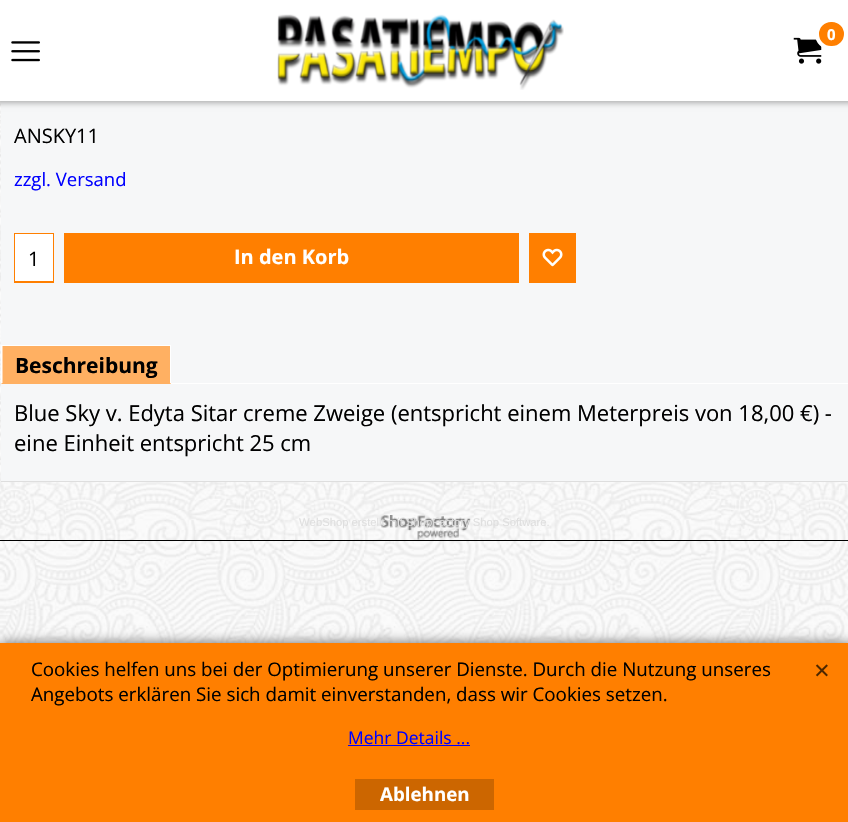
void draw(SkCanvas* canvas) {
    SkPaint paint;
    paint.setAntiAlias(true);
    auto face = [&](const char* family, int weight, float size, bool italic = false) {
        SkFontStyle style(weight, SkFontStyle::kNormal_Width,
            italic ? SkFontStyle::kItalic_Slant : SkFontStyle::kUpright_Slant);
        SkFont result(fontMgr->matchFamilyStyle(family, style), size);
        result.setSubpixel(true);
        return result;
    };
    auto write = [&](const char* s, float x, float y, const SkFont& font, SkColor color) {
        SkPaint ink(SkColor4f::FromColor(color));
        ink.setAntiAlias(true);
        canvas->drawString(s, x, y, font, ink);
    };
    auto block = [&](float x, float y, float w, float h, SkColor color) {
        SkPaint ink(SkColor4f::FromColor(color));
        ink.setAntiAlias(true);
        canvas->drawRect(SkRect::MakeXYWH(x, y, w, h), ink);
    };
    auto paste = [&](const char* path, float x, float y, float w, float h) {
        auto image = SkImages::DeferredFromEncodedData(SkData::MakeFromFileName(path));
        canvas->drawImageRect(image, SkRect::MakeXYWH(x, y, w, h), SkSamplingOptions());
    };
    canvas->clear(SK_ColorWHITE);
    paste("pic1.png", 0, 101, 848, 542);
    block(1, 101, 847, 380, SkColorSetRGB(246, 247, 248));
    paint.setColor(SkColorSetARGB(77, 0, 0, 0));
    paint.setMaskFilter(SkMaskFilter::MakeBlur(kNormal_SkBlurStyle, 3));
    canvas->drawRect(SkRect::MakeXYWH(-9, -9, 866, 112), paint);
    paint.setMaskFilter(nullptr);
    block(0, 0, 848, 101, SK_ColorWHITE);
    paste("pic2.png", 277, 14, 287, 76);
    paste("pic3.png", 793, 37, 29, 27);
    paint.setColor(SkColorSetRGB(255, 127, 0));
    canvas->drawRoundRect(SkRect::MakeXYWH(817, 20, 29, 28), 14, 14, paint);
    paint.setStyle(SkPaint::kStroke_Style);
    paint.setStrokeWidth(4);
    paint.setColor(SK_ColorWHITE);
    canvas->drawRoundRect(SkRect::MakeXYWH(817, 20, 29, 28), 14, 14, paint);
    auto kFont1 = face("Open Sans", 700, 15);
    write("0", 827, 40, kFont1, SK_ColorWHITE);
    paste("pic4.png", 11, 41, 29, 21);
    auto kFont2 = face("Open Sans", 400, 20);
    write("ANSKY11", 14, 143, kFont2, SK_ColorBLACK);
    auto kFont3 = face("Open Sans", 400, 18.5f);
    write("zzgl. Versand", 14, 186, kFont3, SkColorSetRGB(0, 0, 255));
    block(14, 233, 40, 50, SkColorSetRGB(255, 127, 0));
    block(15, 234, 38, 47, SK_ColorWHITE);
    write("1", 28, 266, kFont2, SK_ColorBLACK);
    block(64, 233, 455, 50, SkColorSetRGB(255, 127, 0));
    auto kFont4 = face("Open Sans", 700, 20);
    write("In den Korb", 234, 264, kFont4, SK_ColorWHITE);
    block(529, 233, 47, 50, SkColorSetRGB(255, 127, 0));
    paste("pic5.png", 542, 248, 21, 19);
    block(1, 346, 170, 38, SkColorSetRGB(255, 176, 98));
    block(1, 345, 170, 1, SK_ColorWHITE);
    paint.setStyle(SkPaint::kFill_Style);
    canvas->drawPath(SkPathBuilder().moveTo(171, 345).lineTo(171, 384).lineTo(170, 382.5f).lineTo(170, 346).close().detach(), paint);
    canvas->drawPath(SkPathBuilder().moveTo(1, 384).lineTo(1, 345).lineTo(2.5f, 346).lineTo(2.5f, 382.5f).close().detach(), paint);
    auto kFont5 = face("Open Sans", 700, 21);
    write("Beschreibung", 15, 373, kFont5, SK_ColorBLACK);
    block(171, 383, 677, 1, SK_ColorWHITE);
    auto kFont6 = face("Open Sans", 400, 22);
    write("Blue Sky v. Edyta Sitar creme Zweige (entspricht einem Meterpreis von 18,00 €) -", 14, 421, kFont6, SK_ColorBLACK);
    write("eine Einheit entspricht 25 cm", 14, 451, kFont6, SK_ColorBLACK);
    block(1, 481, 847, 1, SkColorSetRGB(222, 222, 222));
    paste("pic6.png", 381, 515, 90, 25);
    auto kFont7 = face("Liberation Sans", 400, 11.25f);
    write("WebShop erstellt mit ShopFactory Shop Software.", 299, 526, kFont7, SkColorSetRGB(223, 223, 223));
    block(0, 540, 848, 1, SK_ColorBLACK);
    paint.setColor(SkColorSetRGB(102, 102, 102));
    paint.setMaskFilter(SkMaskFilter::MakeBlur(kNormal_SkBlurStyle, 6));
    canvas->drawRect(SkRect::MakeXYWH(0, 643, 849, 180), paint);
    paint.setMaskFilter(nullptr);
    block(0, 643, 848, 179, SkColorSetRGB(255, 127, 0));
    auto kFont8 = face("Open Sans", 400, 18.75f);
    write("Cookies helfen uns bei der Optimierung unserer Dienste. Durch die Nutzung unseres", 31, 676, kFont8, SK_ColorBLACK);
    write("Angebots erklären Sie sich damit einverstanden, dass wir Cookies setzen.", 31, 701, kFont8, SK_ColorBLACK);
    auto kFont9 = face("Open Sans", 400, 17.5f);
    write("Mehr Details ...", 348, 744, kFont9, SkColorSetRGB(0, 0, 255));
    block(348, 745, 122, 1, SkColorSetRGB(0, 0, 255));
    paste("pic7.png", 815, 664, 13, 13);
    block(355, 779, 139, 31, SkColorSetRGB(204, 102, 0));
    auto kFont10 = face("Open Sans", 700, 18.75f);
    write("Ablehnen", 380, 801, kFont10, SK_ColorWHITE);
}
